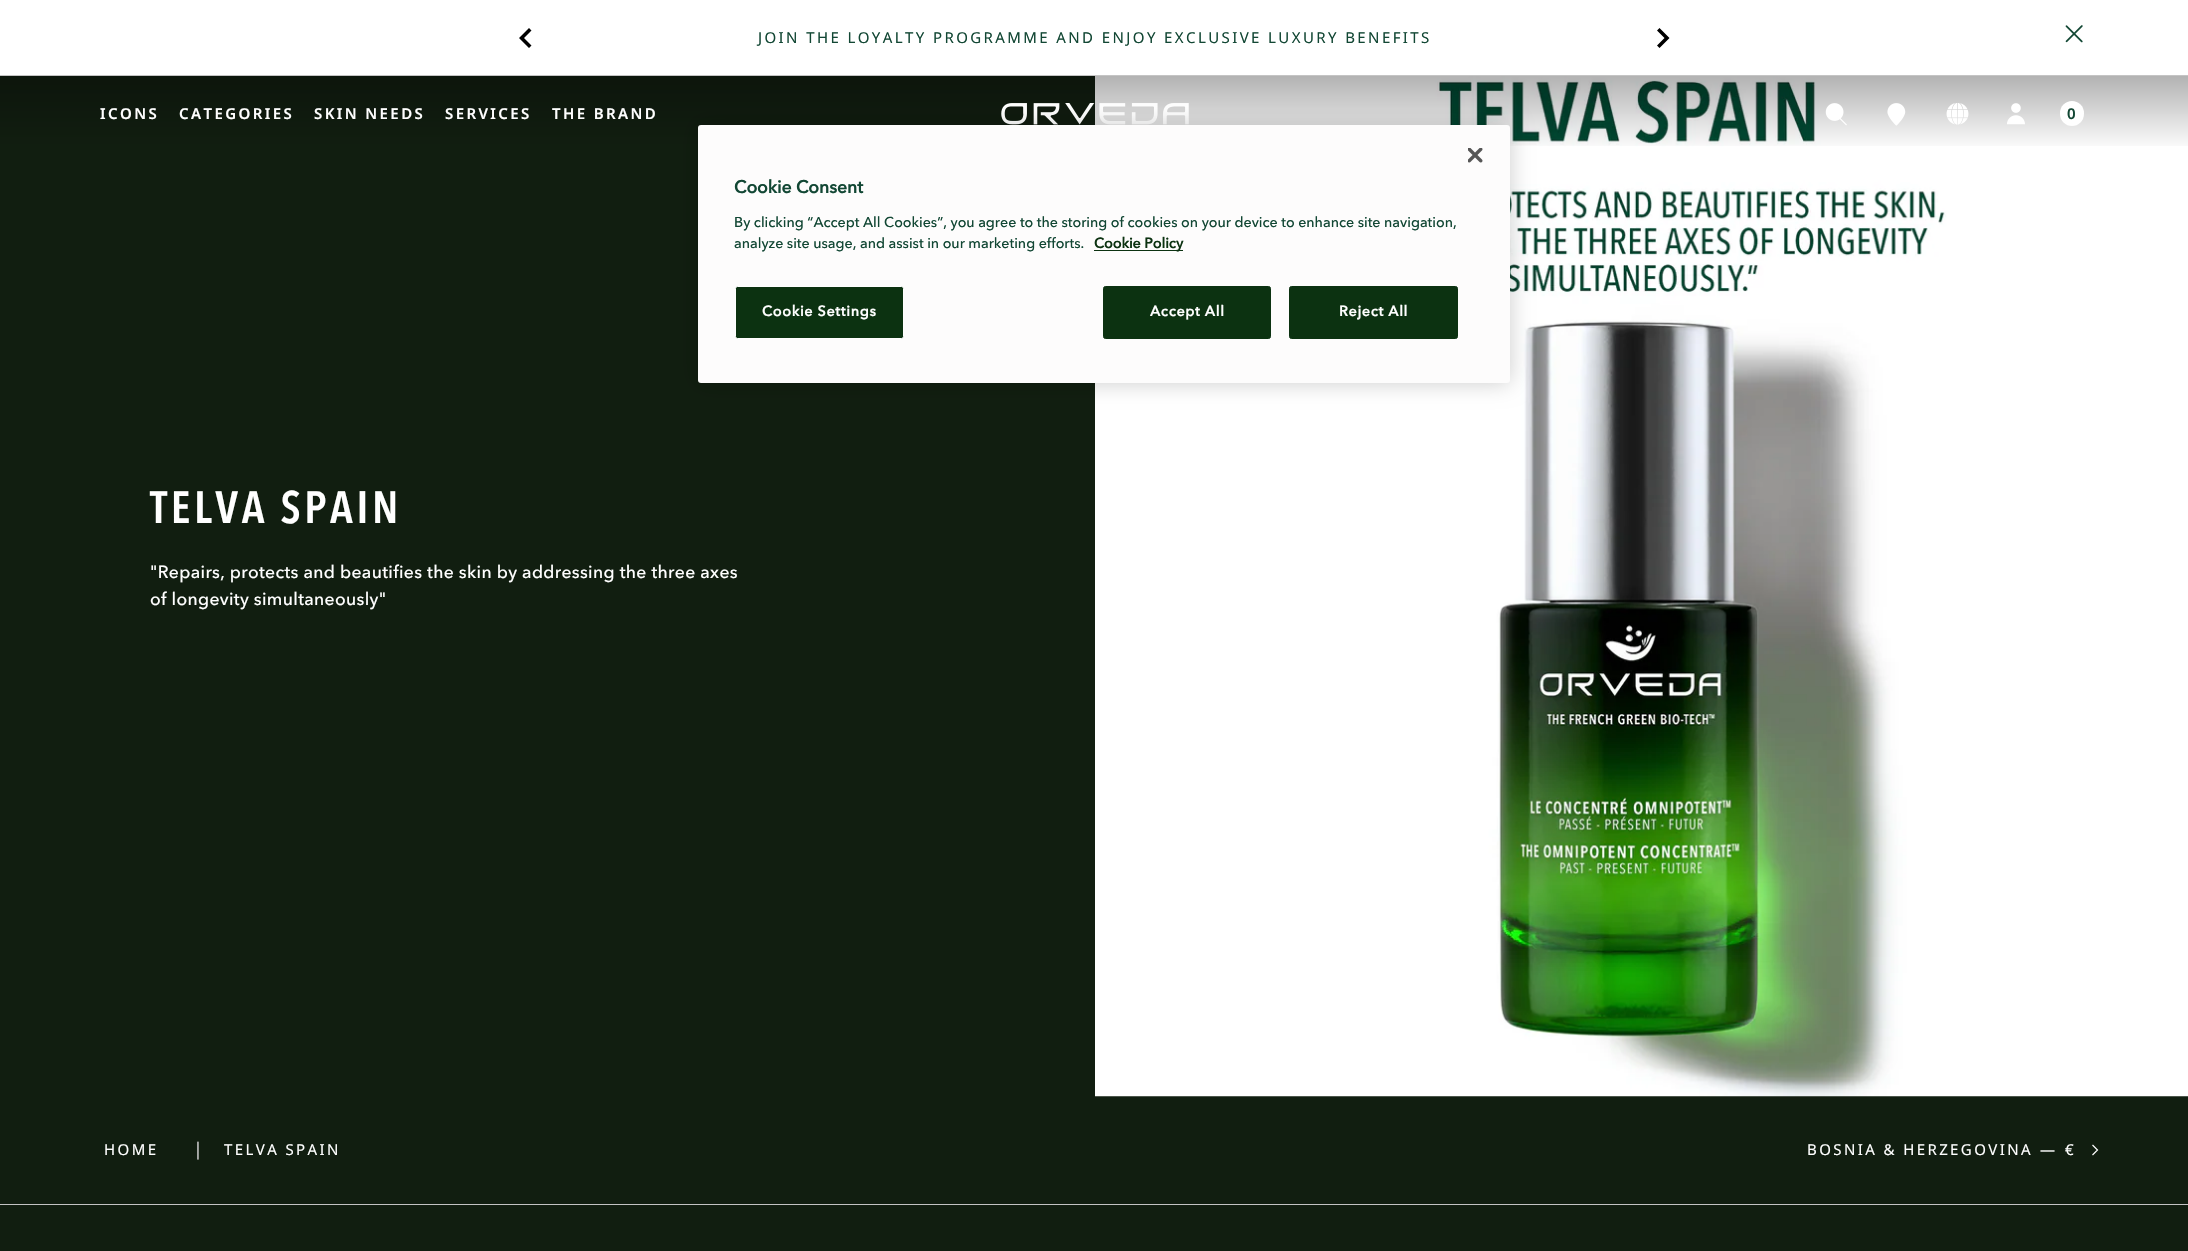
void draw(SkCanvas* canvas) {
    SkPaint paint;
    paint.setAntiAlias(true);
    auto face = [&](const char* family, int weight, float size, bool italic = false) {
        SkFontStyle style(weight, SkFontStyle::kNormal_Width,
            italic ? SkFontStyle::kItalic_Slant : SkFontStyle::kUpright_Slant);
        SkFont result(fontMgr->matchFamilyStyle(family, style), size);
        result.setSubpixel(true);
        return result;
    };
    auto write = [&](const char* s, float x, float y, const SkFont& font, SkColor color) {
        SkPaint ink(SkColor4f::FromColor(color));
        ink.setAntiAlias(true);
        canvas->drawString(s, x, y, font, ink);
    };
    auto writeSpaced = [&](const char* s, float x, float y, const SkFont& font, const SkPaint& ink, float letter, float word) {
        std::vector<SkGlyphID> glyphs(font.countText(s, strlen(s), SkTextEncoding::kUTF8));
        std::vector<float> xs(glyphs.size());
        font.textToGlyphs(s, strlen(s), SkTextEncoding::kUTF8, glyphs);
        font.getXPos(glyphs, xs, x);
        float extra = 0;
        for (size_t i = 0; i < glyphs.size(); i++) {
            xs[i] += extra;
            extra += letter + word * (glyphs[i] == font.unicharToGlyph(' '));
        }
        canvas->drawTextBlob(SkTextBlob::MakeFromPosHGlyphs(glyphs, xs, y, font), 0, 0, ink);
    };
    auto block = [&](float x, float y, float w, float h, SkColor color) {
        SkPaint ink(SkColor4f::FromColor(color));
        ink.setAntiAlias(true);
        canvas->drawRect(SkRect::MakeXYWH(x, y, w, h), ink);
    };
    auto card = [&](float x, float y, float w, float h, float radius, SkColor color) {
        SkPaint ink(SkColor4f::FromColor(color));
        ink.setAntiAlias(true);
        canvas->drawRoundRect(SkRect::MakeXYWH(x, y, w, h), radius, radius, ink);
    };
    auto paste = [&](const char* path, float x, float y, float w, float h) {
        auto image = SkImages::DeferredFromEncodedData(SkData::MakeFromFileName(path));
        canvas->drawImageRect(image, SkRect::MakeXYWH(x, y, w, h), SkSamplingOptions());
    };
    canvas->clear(SkColorSetRGB(17, 30, 16));
    block(0, 0, 2188, 75, SK_ColorWHITE);
    block(0, 75, 2188, 1, SkColorSetRGB(196, 196, 196));
    paint.setColor(SK_ColorBLACK);
    canvas->drawPath(SkPathBuilder().moveTo(529, 28).lineTo(531.5f, 30.5f).lineTo(524, 38).lineTo(531.5f, 45.5f).lineTo(529, 48).lineTo(519, 38).close().detach(), paint);
    canvas->drawPath(SkPathBuilder().moveTo(1659.5f, 28).lineTo(1657, 30.5f).lineTo(1664.5f, 38).lineTo(1657, 45.5f).lineTo(1659.5f, 48).lineTo(1669.5f, 38).close().detach(), paint);
    auto kFont1 = face("Noto Sans", 400, 15);
    paint.setColor(SkColorSetRGB(18, 71, 52));
    writeSpaced("JOIN THE LOYALTY PROGRAMME AND ENJOY EXCLUSIVE LUXURY BENEFITS", 758, 43, kFont1, paint, 2.4f, 0);
    paste("pic1.png", 2065, 25, 18, 18);
    paste("pic8.png", 1095, 76, 1093, 1021);
    {
        const SkColor colors[] = {SkColorSetARGB(77, 0, 0, 0), SkColorSetARGB(0, 0, 0, 0)};
        const float stops[] = {0, 1};
        const SkPoint ends[] = {{1094, 76}, {1094, 151}};
        paint.setShader(SkGradientShader::MakeLinear(ends, colors, stops, 2, SkTileMode::kClamp));
        paint.setAlpha(255);
    }
    canvas->drawRect(SkRect::MakeXYWH(0, 76, 2188, 70), paint);
    auto kFont2 = face("Noto Sans", 600, 15);
    paint.setShader(nullptr);
    paint.setColor(SK_ColorWHITE);
    writeSpaced("ICONS", 100, 119, kFont2, paint, 2.4f, 0);
    writeSpaced("CATEGORIES", 179, 119, kFont2, paint, 2.4f, 0);
    writeSpaced("SKIN NEEDS", 314, 119, kFont2, paint, 2.4f, 0);
    writeSpaced("SERVICES", 445, 119, kFont2, paint, 2.4f, 0);
    writeSpaced("THE BRAND", 552, 119, kFont2, paint, 2.4f, 0);
    paste("pic2.png", 1001, 103, 188, 22);
    paste("pic3.png", 1825, 103, 22, 23);
    paste("pic4.png", 1887, 103, 19, 23);
    paste("pic5.png", 1946, 103, 23, 22);
    paste("pic6.png", 2007, 103, 18, 22);
    card(2060, 101, 24, 25, 12, SK_ColorWHITE);
    write("0", 2067, 119, kFont2, SkColorSetRGB(18, 71, 52));
    paint.setColor(SkColorSetARGB(51, 0, 0, 0));
    paint.setMaskFilter(SkMaskFilter::MakeBlur(kNormal_SkBlurStyle, 11));
    canvas->drawRoundRect(SkRect::MakeXYWH(698, 125, 812, 258), 3, 3, paint);
    paint.setMaskFilter(nullptr);
    card(698, 125, 812, 258, 3, SkColorSetRGB(253, 252, 252));
    paste("pic7.png", 1468, 148, 15, 15);
    auto kFont3 = face("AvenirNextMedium", 700, 17.5f);
    write("Cookie Consent", 734, 193, kFont3, SkColorSetRGB(18, 71, 52));
    auto kFont4 = face("AvenirNextMedium", 500, 14.23f);
    write("By clicking “Accept All Cookies”, you agree to the storing of cookies on your device to enhance site navigation,", 734, 227, kFont4, SkColorSetRGB(18, 71, 52));
    write("analyze site usage, and assist in our marketing efforts.", 734, 248, kFont4, SkColorSetRGB(18, 71, 52));
    block(1094, 250, 89, 1, SkColorSetRGB(12, 50, 17));
    auto kFont5 = face("AvenirNextMedium", 700, 14.23f);
    write("Cookie Policy", 1094, 248, kFont5, SkColorSetRGB(12, 50, 17));
    paint.setColor(SkColorSetRGB(12, 50, 17));
    canvas->drawRoundRect(SkRect::MakeXYWH(735.5f, 286.5f, 168, 52), 2, 2, paint);
    paint.setStyle(SkPaint::kStroke_Style);
    paint.setStrokeWidth(1);
    paint.setColor(SK_ColorWHITE);
    canvas->drawRoundRect(SkRect::MakeXYWH(735.5f, 286.5f, 168, 52), 2, 2, paint);
    paint.setStyle(SkPaint::kFill_Style);
    writeSpaced("Cookie Settings", 762, 316, kFont5, paint, 0.75f, 0);
    paint.setColor(SkColorSetRGB(12, 50, 17));
    canvas->drawRoundRect(SkRect::MakeXYWH(1103.5f, 286.5f, 167, 52), 2, 2, paint);
    paint.setStyle(SkPaint::kStroke_Style);
    canvas->drawRoundRect(SkRect::MakeXYWH(1103.5f, 286.5f, 167, 52), 2, 2, paint);
    paint.setStyle(SkPaint::kFill_Style);
    paint.setColor(SK_ColorWHITE);
    writeSpaced("Accept All", 1150, 316, kFont5, paint, 0.75f, 0);
    paint.setColor(SkColorSetRGB(12, 50, 17));
    canvas->drawRoundRect(SkRect::MakeXYWH(1289.5f, 286.5f, 168, 52), 2, 2, paint);
    paint.setStyle(SkPaint::kStroke_Style);
    canvas->drawRoundRect(SkRect::MakeXYWH(1289.5f, 286.5f, 168, 52), 2, 2, paint);
    paint.setStyle(SkPaint::kFill_Style);
    paint.setColor(SK_ColorWHITE);
    writeSpaced("Reject All", 1339, 316, kFont5, paint, 0.75f, 0);
    auto kFont6 = face("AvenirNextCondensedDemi", 700, 45);
    writeSpaced("TELVA SPAIN", 150, 523, kFont6, paint, 3.6f, 0);
    auto kFont7 = face("AvenirNextMedium", 500, 17.5f);
    writeSpaced("\"Repairs, protects and beautifies the skin by addressing the three axes", 150, 578, kFont7, paint, 0.35f, 0);
    writeSpaced("of longevity simultaneously\"", 150, 605, kFont7, paint, 0.35f, 0);
    block(0, 1204, 2188, 1, SkColorSetRGB(196, 196, 196));
    writeSpaced("HOME", 104, 1155, kFont1, paint, 2.4f, 0);
    paint.setColor(SkColorSetRGB(196, 196, 196));
    writeSpaced("|", 196, 1155, kFont7, paint, 0.35f, 0);
    paint.setColor(SK_ColorWHITE);
    writeSpaced("TELVA SPAIN", 224, 1155, kFont1, paint, 2.4f, 0);
    writeSpaced("BOSNIA & HERZEGOVINA", 1807, 1155, kFont1, paint, 2.4f, 0);
    writeSpaced("—", 2040, 1155, kFont1, paint, 2.4f, 0);
    writeSpaced("€", 2065, 1155, kFont1, paint, 2.4f, 0);
    paint.setStyle(SkPaint::kStroke_Style);
    paint.setStrokeWidth(1.2f);
    canvas->drawPath(SkPathBuilder().moveTo(2092.5f, 1155).lineTo(2097.5f, 1150).lineTo(2092.5f, 1145).detach(), paint);
}
